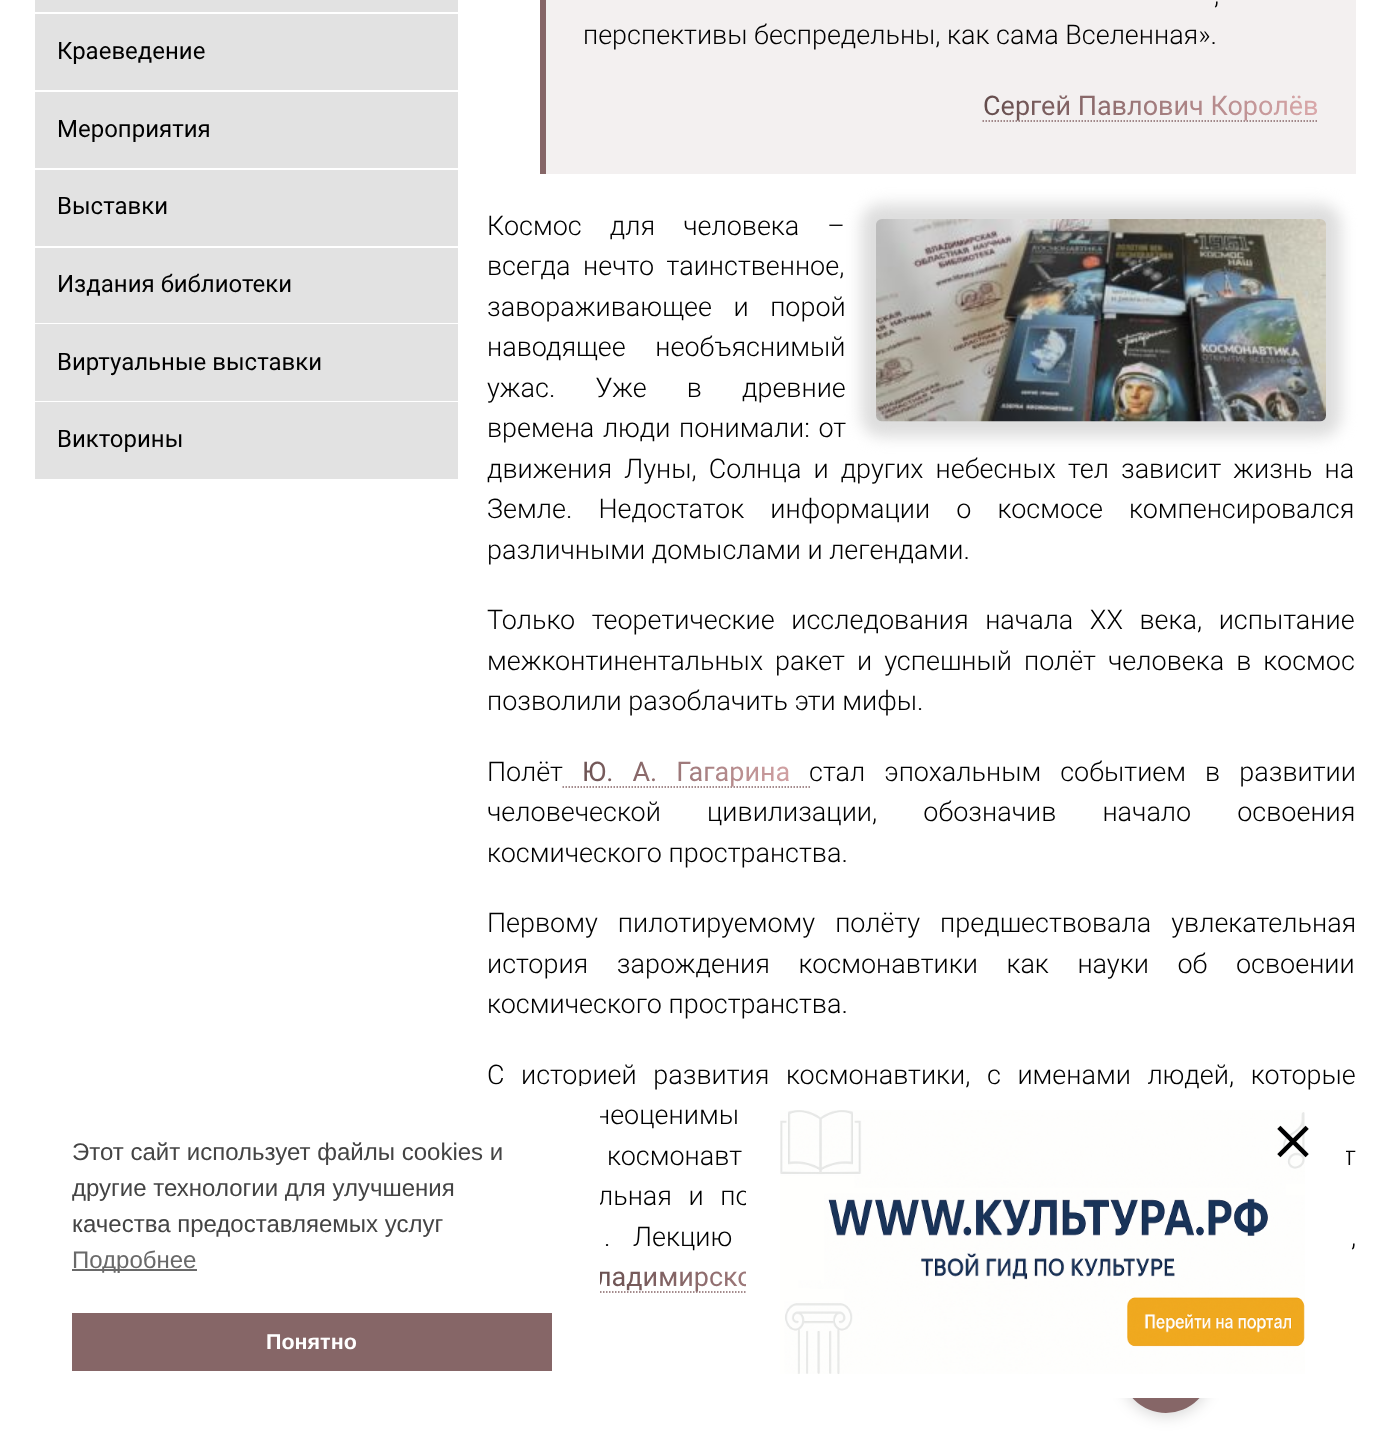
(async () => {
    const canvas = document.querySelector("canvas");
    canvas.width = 1390;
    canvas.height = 1442;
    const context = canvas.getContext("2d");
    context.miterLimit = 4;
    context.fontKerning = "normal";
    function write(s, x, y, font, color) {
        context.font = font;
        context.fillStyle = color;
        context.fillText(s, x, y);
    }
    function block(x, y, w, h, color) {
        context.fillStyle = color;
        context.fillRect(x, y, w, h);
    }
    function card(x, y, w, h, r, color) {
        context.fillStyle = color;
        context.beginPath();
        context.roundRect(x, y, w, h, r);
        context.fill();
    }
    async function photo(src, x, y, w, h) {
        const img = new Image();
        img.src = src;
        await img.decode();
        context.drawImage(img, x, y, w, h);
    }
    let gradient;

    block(0, 0, 1390, 1442, "rgb(255, 255, 255)");
    block(35, 0, 423, 12, "rgb(226, 226, 226)");
    block(35, 14, 423, 76, "rgb(226, 226, 226)");
    write("Краеведение", 57, 59, "24px Roboto", "rgb(0, 0, 0)");
    block(35, 92, 423, 76, "rgb(226, 226, 226)");
    write("Мероприятия", 57, 137, "24px Roboto", "rgb(0, 0, 0)");
    block(35, 170, 423, 76, "rgb(226, 226, 226)");
    write("Выставки", 57, 214, "24px Roboto", "rgb(0, 0, 0)");
    block(35, 248, 423, 75, "rgb(226, 226, 226)");
    write("Издания библиотеки", 57, 292, "24px Roboto", "rgb(0, 0, 0)");
    block(35, 324, 423, 77, "rgb(226, 226, 226)");
    write("Виртуальные выставки", 57, 370, "24px Roboto", "rgb(0, 0, 0)");
    block(35, 402, 423, 77, "rgb(226, 226, 226)");
    write("Викторины", 57, 447, "24px Roboto", "rgb(0, 0, 0)");
    block(546, 0, 810, 174, "rgb(243, 240, 240)");
    block(540, 0, 6, 174, "rgb(134, 102, 103)");
    context.wordSpacing = "21px";
    write(",", 1214, 4, "300 27px Roboto", "rgb(0, 0, 0)");
    context.wordSpacing = "0px";
    write("перспективы беспредельны, как сама Вселенная».", 583, 44, "300 27px Roboto", "rgb(0, 0, 0)");
    context.beginPath();
    context.moveTo(982.5, 121);
    context.lineTo(1318.5, 121);
    context.strokeStyle = "rgb(134, 102, 103)";
    context.lineWidth = 1.5;
    context.setLineDash([1.5, 1.5]);
    context.stroke();
    context.font = "27px Roboto";
    gradient = context.createLinearGradient(983, 106, 1318, 106);
    gradient.addColorStop(0, "rgb(99, 76, 76)");
    gradient.addColorStop(0.28, "rgb(134, 102, 103)");
    gradient.addColorStop(1, "rgb(218, 168, 170)");
    context.fillStyle = gradient;
    context.fillText("Сергей Павлович Королёв", 983, 115);
    context.wordSpacing = "21.5px";
    write("Космос для человека –", 487, 235, "300 27px Roboto", "rgb(0, 0, 0)");
    context.fillStyle = "rgb(221, 221, 221)";
    context.filter = "blur(7.5px)";
    context.beginPath();
    context.roundRect(861, 204, 480, 233, 21);
    context.fill();
    context.filter = "none";
    await photo("media/1.png", 876, 219, 450, 203);
    context.wordSpacing = "6px";
    write("всегда нечто таинственное,", 487, 275, "300 27px Roboto", "rgb(0, 0, 0)");
    context.wordSpacing = "15px";
    write("завораживающее и порой", 487, 316, "300 27px Roboto", "rgb(0, 0, 0)");
    context.wordSpacing = "23px";
    write("наводящее необъяснимый", 487, 356, "300 27px Roboto", "rgb(0, 0, 0)");
    context.wordSpacing = "33.5px";
    write("ужас. Уже в древние", 487, 397, "300 27px Roboto", "rgb(0, 0, 0)");
    context.wordSpacing = "2px";
    write("времена люди понимали: от", 487, 437, "300 27px Roboto", "rgb(0, 0, 0)");
    context.wordSpacing = "5.5px";
    write("движения Луны, Солнца и других небесных тел зависит жизнь на", 487, 478, "300 27px Roboto", "rgb(0, 0, 0)");
    context.wordSpacing = "19.5px";
    write("Земле. Недостаток информации о космосе компенсировался", 487, 518, "300 27px Roboto", "rgb(0, 0, 0)");
    context.wordSpacing = "0px";
    write("различными домыслами и легендами.", 487, 559, "300 27px Roboto", "rgb(0, 0, 0)");
    context.wordSpacing = "10px";
    write("Только теоретические исследования начала XX века, испытание", 487, 629, "300 27px Roboto", "rgb(0, 0, 0)");
    context.wordSpacing = "5.5px";
    write("межконтинентальных ракет и успешный полёт человека в космос", 487, 670, "300 27px Roboto", "rgb(0, 0, 0)");
    context.wordSpacing = "0px";
    write("позволили разоблачить эти мифы.", 487, 710, "300 27px Roboto", "rgb(0, 0, 0)");
    write("Полёт", 487, 781, "300 27px Roboto", "rgb(0, 0, 0)");
    context.beginPath();
    context.moveTo(562.5, 787);
    context.lineTo(810, 787);
    context.stroke();
    context.wordSpacing = "12.5px";
    context.font = "27px Roboto";
    gradient = context.createLinearGradient(563, 772, 809, 772);
    gradient.addColorStop(0, "rgb(99, 76, 76)");
    gradient.addColorStop(0.28, "rgb(134, 102, 103)");
    gradient.addColorStop(1, "rgb(218, 168, 170)");
    context.fillStyle = gradient;
    context.fillText("Ю. А. Гагарина", 582, 781);
    write("стал эпохальным событием в развитии", 809, 781, "300 27px Roboto", "rgb(0, 0, 0)");
    context.wordSpacing = "39.5px";
    write("человеческой цивилизации, обозначив начало освоения", 487, 821, "300 27px Roboto", "rgb(0, 0, 0)");
    context.wordSpacing = "0px";
    write("космического пространства.", 487, 862, "300 27px Roboto", "rgb(0, 0, 0)");
    context.wordSpacing = "13.5px";
    write("Первому пилотируемому полёту предшествовала увлекательная", 487, 932, "300 27px Roboto", "rgb(0, 0, 0)");
    context.wordSpacing = "22px";
    write("история зарождения космонавтики как науки об освоении", 487, 973, "300 27px Roboto", "rgb(0, 0, 0)");
    context.wordSpacing = "0px";
    write("космического пространства.", 487, 1013, "300 27px Roboto", "rgb(0, 0, 0)");
    write("С", 487, 1084, "300 27px Roboto", "rgb(0, 0, 0)");
    context.wordSpacing = "10px";
    write("историей развития космонавтики, с именами людей, которые", 521, 1084, "300 27px Roboto", "rgb(0, 0, 0)");
    context.wordSpacing = "12px";
    write("неоценимы", 595, 1124, "300 27px Roboto", "rgb(0, 0, 0)");
    context.wordSpacing = "12.5px";
    write("космонавт", 607, 1165, "300 27px Roboto", "rgb(0, 0, 0)");
    write("т", 1343, 1165, "300 27px Roboto", "rgb(0, 0, 0)");
    context.wordSpacing = "10px";
    write("льная и по", 598, 1205, "300 27px Roboto", "rgb(0, 0, 0)");
    context.wordSpacing = "0px";
    write(".", 604, 1246, "300 27px Roboto", "rgb(0, 0, 0)");
    context.wordSpacing = "16px";
    write("Лекцию", 633, 1246, "300 27px Roboto", "rgb(0, 0, 0)");
    write(",", 1351, 1246, "300 27px Roboto", "rgb(0, 0, 0)");
    context.beginPath();
    context.moveTo(579, 1292);
    context.lineTo(934.5, 1292);
    context.stroke();
    context.wordSpacing = "0px";
    context.font = "27px Roboto";
    gradient = context.createLinearGradient(579, 1277, 935, 1277);
    gradient.addColorStop(0, "rgb(99, 76, 76)");
    gradient.addColorStop(0.28, "rgb(134, 102, 103)");
    gradient.addColorStop(1, "rgb(218, 168, 170)");
    context.fillStyle = gradient;
    context.fillText("ладимирско", 596, 1286);
    block(579, 1086, 21, 207, "rgb(255, 255, 255)");
    write("Этот сайт использует файлы cookies и", 72, 1160, "24px Liberation Sans", "rgb(68, 68, 68)");
    write("другие технологии для улучшения", 72, 1196, "24px Liberation Sans", "rgb(68, 68, 68)");
    write("качества предоставляемых услуг", 72, 1232, "24px Liberation Sans", "rgb(68, 68, 68)");
    block(72, 1269, 125, 2, "rgb(105, 105, 105)");
    write("Подробнее", 72, 1268, "24px Liberation Sans", "rgb(105, 105, 105)");
    block(72, 1313, 480, 58, "rgb(134, 102, 103)");
    write("Понятно", 266, 1349, "bold 21.5px Liberation Sans", "rgb(255, 255, 255)");
    context.fillStyle = "rgba(0, 0, 0, 0.16)";
    context.filter = "blur(7.5px)";
    context.beginPath();
    context.roundRect(1121, 1326, 90, 90, 45);
    context.fill();
    context.filter = "none";
    context.fillStyle = "rgb(134, 102, 103)";
    context.beginPath();
    context.arc(1166, 1368, 45, 0, Math.PI * 2);
    context.fill();
    card(746, 1098, 600, 300, 6, "rgb(255, 255, 255)");
    await photo("media/2.png", 780, 1110, 525, 264);
    await photo("media/3.png", 1277, 1125, 32, 33);
})();
